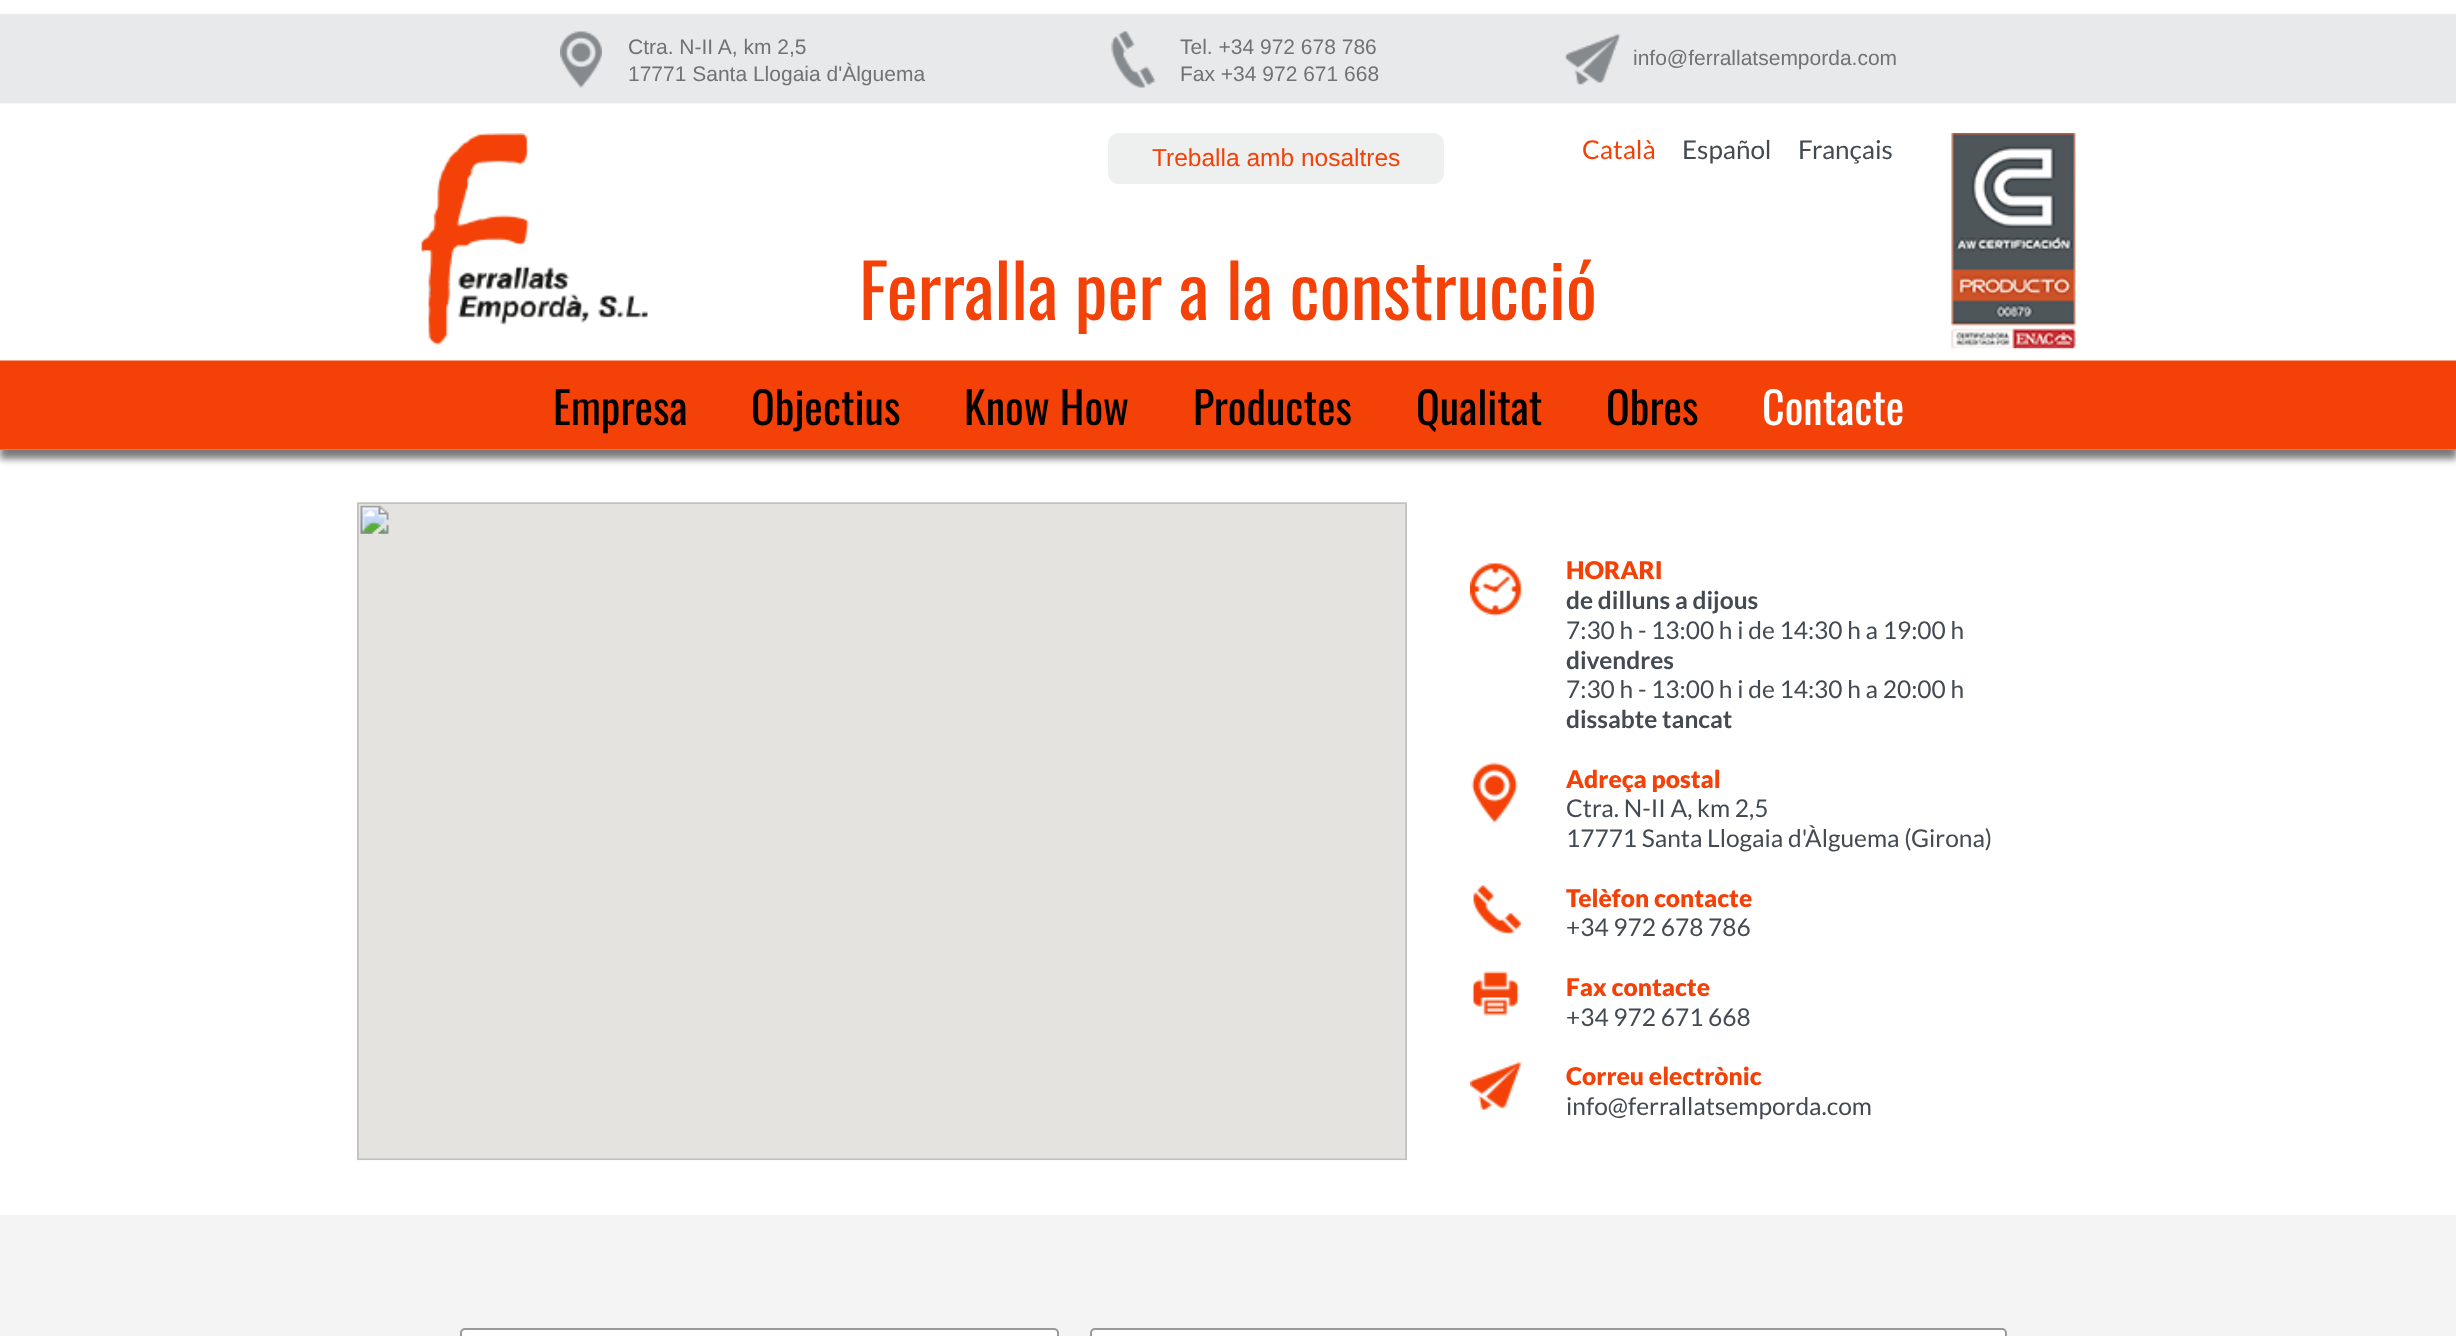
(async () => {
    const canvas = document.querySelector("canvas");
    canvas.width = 2456;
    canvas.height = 1336;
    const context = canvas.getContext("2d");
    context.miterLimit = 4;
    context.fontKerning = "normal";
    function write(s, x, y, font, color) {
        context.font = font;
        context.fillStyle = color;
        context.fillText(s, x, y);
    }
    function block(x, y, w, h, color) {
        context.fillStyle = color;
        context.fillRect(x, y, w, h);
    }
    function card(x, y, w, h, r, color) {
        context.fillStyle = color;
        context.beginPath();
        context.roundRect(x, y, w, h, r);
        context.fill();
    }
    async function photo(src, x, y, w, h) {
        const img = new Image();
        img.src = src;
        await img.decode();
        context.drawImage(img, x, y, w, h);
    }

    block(0, 0, 2456, 1336, "rgb(255, 255, 255)");
    context.save();
    context.beginPath();
    context.moveTo(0, 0);
    context.lineTo(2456, 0);
    context.lineTo(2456, 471);
    context.lineTo(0, 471);
    context.closePath();
    context.moveTo(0, 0);
    context.lineTo(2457, 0);
    context.lineTo(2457, 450);
    context.lineTo(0, 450);
    context.closePath();
    context.clip("evenodd");
    context.fillStyle = "rgba(51, 51, 51, 0.65)";
    context.filter = "blur(3.5px)";
    context.beginPath();
    context.rect(0, 9, 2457, 450);
    context.fill();
    context.filter = "none";
    context.restore();
    await photo("media/1.png", 0, 13, 2456, 437);
    await photo("media/2.png", 560, 31, 42, 57);
    write("Ctra. N-II A, km 2,5", 628, 54, "21px Liberation Sans", "rgb(113, 114, 116)");
    write("17771 Santa Llogaia d'Àlguema", 628, 81, "21px Liberation Sans", "rgb(113, 114, 116)");
    await photo("media/3.png", 1111, 31, 44, 57);
    write("Tel. +34 972 678 786", 1180, 54, "21px Liberation Sans", "rgb(113, 114, 116)");
    write("Fax +34 972 671 668", 1180, 81, "21px Liberation Sans", "rgb(113, 114, 116)");
    await photo("media/4.png", 1564, 33, 57, 52);
    write("info@ferrallatsemporda.com", 1633, 65, "21px Liberation Sans", "rgb(113, 114, 116)");
    await photo("media/5.png", 420, 133, 228, 212);
    card(1108, 133, 336, 51, 11, "rgb(238, 239, 239)");
    write("Treballa amb nosaltres", 1152, 166, "24.5px Liberation Sans", "rgb(243, 65, 7)");
    write("Català", 1582, 159, "26px Lato", "rgb(243, 65, 7)");
    write("Español", 1682, 159, "26px Lato", "rgb(67, 74, 82)");
    write("Français", 1798, 159, "26px Lato", "rgb(67, 74, 82)");
    await photo("media/6.png", 1950, 133, 126, 216);
    write("Ferralla per a la construcció", 859, 320, "73.5px Oswald", "rgb(243, 65, 7)");
    write("Empresa", 553, 425, "44px Oswald", "rgb(0, 0, 0)");
    write("Objectius", 751, 425, "44px Oswald", "rgb(0, 0, 0)");
    write("Know How", 964, 425, "44px Oswald", "rgb(0, 0, 0)");
    write("Productes", 1193, 425, "44px Oswald", "rgb(0, 0, 0)");
    write("Qualitat", 1416, 425, "44px Oswald", "rgb(0, 0, 0)");
    write("Obres", 1606, 425, "44px Oswald", "rgb(0, 0, 0)");
    write("Contacte", 1762, 425, "44px Oswald", "rgb(255, 255, 255)");
    await photo("media/7.png", 357, 502, 1050, 659);
    await photo("media/8.png", 1470, 563, 53, 547);
    write("HORARI", 1566, 579, "900 24.5px Lato", "rgb(243, 65, 7)");
    write("de dilluns a dijous", 1566, 609, "bold 24.5px Lato", "rgb(67, 74, 82)");
    write("7:30 h - 13:00 h i de 14:30 h a 19:00 h", 1566, 639, "24.5px Lato", "rgb(67, 74, 82)");
    write("divendres", 1566, 669, "bold 24.5px Lato", "rgb(67, 74, 82)");
    write("7:30 h - 13:00 h i de 14:30 h a 20:00 h", 1566, 698, "24.5px Lato", "rgb(67, 74, 82)");
    write("dissabte tancat", 1566, 728, "bold 24.5px Lato", "rgb(67, 74, 82)");
    write("Adreça postal", 1566, 788, "900 24.5px Lato", "rgb(243, 65, 7)");
    write("Ctra. N-II A, km 2,5", 1566, 817, "24.5px Lato", "rgb(67, 74, 82)");
    write("17771 Santa Llogaia d'Àlguema (Girona)", 1566, 847, "24.5px Lato", "rgb(67, 74, 82)");
    write("Telèfon contacte", 1566, 907, "900 24.5px Lato", "rgb(243, 65, 7)");
    write("+34 972 678 786", 1566, 936, "24.5px Lato", "rgb(67, 74, 82)");
    write("Fax contacte", 1566, 996, "900 24.5px Lato", "rgb(243, 65, 7)");
    write("+34 972 671 668", 1566, 1026, "24.5px Lato", "rgb(67, 74, 82)");
    write("Correu electrònic", 1566, 1085, "900 24.5px Lato", "rgb(243, 65, 7)");
    write("info@ferrallatsemporda.com", 1566, 1115, "24.5px Lato", "rgb(67, 74, 82)");
    block(0, 1215, 2456, 121, "rgb(244, 244, 244)");
    context.fillStyle = "rgb(255, 255, 255)";
    context.beginPath();
    context.roundRect(461, 1329, 597, 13, 4);
    context.fill();
    context.strokeStyle = "rgb(153, 153, 153)";
    context.lineWidth = 2;
    context.stroke();
    context.beginPath();
    context.roundRect(1091, 1329, 915, 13, 4);
    context.fill();
    context.stroke();
})();
